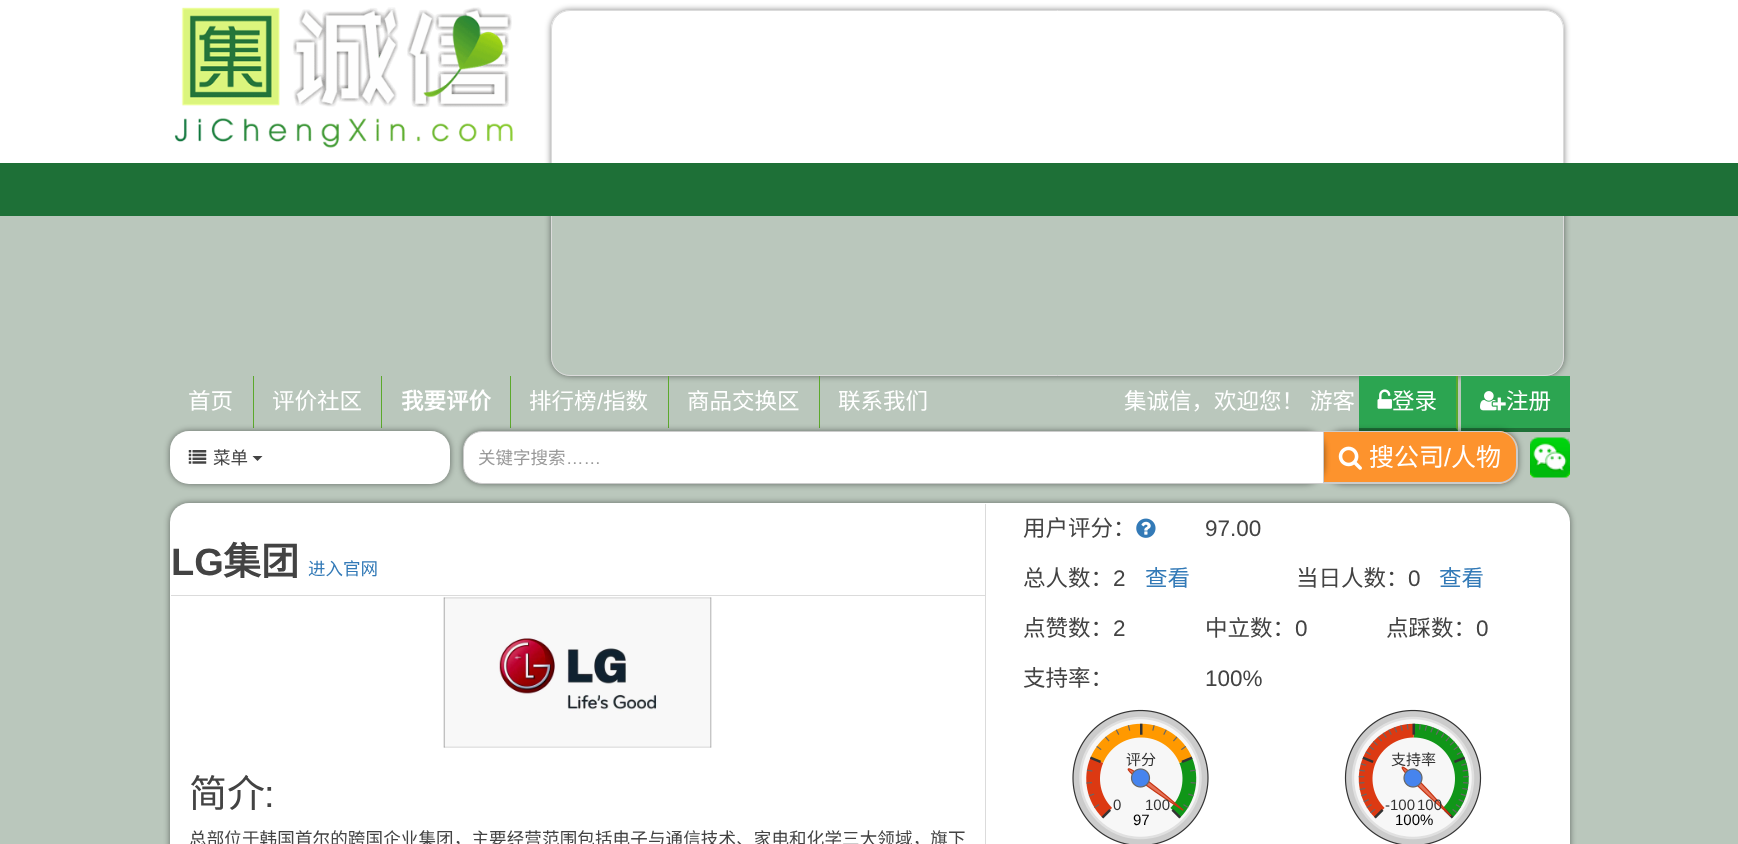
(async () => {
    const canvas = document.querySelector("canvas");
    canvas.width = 1738;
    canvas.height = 844;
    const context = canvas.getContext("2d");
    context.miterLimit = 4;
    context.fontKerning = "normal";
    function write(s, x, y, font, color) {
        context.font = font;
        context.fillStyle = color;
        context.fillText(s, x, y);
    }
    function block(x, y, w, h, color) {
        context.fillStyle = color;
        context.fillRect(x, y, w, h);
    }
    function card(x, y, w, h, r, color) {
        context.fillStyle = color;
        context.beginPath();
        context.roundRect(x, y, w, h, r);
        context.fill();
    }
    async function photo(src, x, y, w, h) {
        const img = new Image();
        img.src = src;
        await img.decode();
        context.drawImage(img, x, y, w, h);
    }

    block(0, 0, 1738, 844, "rgb(186, 199, 188)");
    block(0, 0, 1738, 163, "rgb(255, 255, 255)");
    await photo("media/1.png", 174, 7, 339, 141);
    context.save();
    context.beginPath();
    context.moveTo(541, 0);
    context.lineTo(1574, 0);
    context.lineTo(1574, 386);
    context.lineTo(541, 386);
    context.closePath();
    context.moveTo(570, 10);
    context.lineTo(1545, 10);
    context.bezierCurveTo(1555.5, 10, 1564, 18.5, 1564, 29);
    context.lineTo(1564, 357);
    context.bezierCurveTo(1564, 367.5, 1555.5, 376, 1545, 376);
    context.lineTo(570, 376);
    context.bezierCurveTo(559.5, 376, 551, 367.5, 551, 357);
    context.lineTo(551, 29);
    context.bezierCurveTo(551, 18.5, 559.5, 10, 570, 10);
    context.closePath();
    context.clip("evenodd");
    context.fillStyle = "rgba(0, 0, 0, 0.48)";
    context.filter = "blur(3px)";
    context.beginPath();
    context.roundRect(551, 10, 1013, 366, 19);
    context.fill();
    context.filter = "none";
    context.restore();
    context.beginPath();
    context.roundRect(551.5, 10.5, 1012, 365, 18.5);
    context.strokeStyle = "rgb(219, 219, 219)";
    context.stroke();
    block(0, 163, 1738, 53, "rgb(30, 112, 55)");
    block(253, 376, 1, 52, "rgb(92, 169, 44)");
    write("首页", 188, 409, "22.5px Noto Sans CJK SC", "rgb(255, 255, 255)");
    block(381, 376, 1, 52, "rgb(92, 169, 44)");
    write("评价社区", 272, 409, "22.5px Noto Sans CJK SC", "rgb(255, 255, 255)");
    block(510, 376, 1, 52, "rgb(92, 169, 44)");
    write("我要评价", 401, 409, "bold 22.5px Noto Sans CJK SC", "rgb(255, 255, 255)");
    block(668, 376, 1, 52, "rgb(92, 169, 44)");
    write("排行榜", 529, 409, "22.5px Noto Sans CJK SC", "rgb(255, 255, 255)");
    write("/", 597, 409, "22.5px Liberation Sans", "rgb(255, 255, 255)");
    write("指数", 603, 409, "22.5px Noto Sans CJK SC", "rgb(255, 255, 255)");
    block(819, 376, 1, 52, "rgb(92, 169, 44)");
    write("商品交换区", 687, 409, "22.5px Noto Sans CJK SC", "rgb(255, 255, 255)");
    write("联系我们", 838, 409, "22.5px Noto Sans CJK SC", "rgb(255, 255, 255)");
    context.wordSpacing = "1px";
    write("集诚信，欢迎您！ 游客", 1124, 409, "22.5px Noto Sans CJK SC", "rgb(255, 255, 255)");
    block(1359, 376, 99, 55, "rgb(44, 165, 81)");
    context.fillStyle = "rgb(92, 169, 44)";
    context.beginPath();
    context.moveTo(1458, 376);
    context.lineTo(1458, 431);
    context.lineTo(1456, 428);
    context.lineTo(1456, 376);
    context.closePath();
    context.fill();
    context.fillStyle = "rgb(30, 112, 55)";
    context.beginPath();
    context.moveTo(1458, 431);
    context.lineTo(1359, 431);
    context.lineTo(1359, 428);
    context.lineTo(1456, 428);
    context.closePath();
    context.fill();
    await photo("media/2.png", 1377, 389, 15, 20);
    context.wordSpacing = "0px";
    write("登录", 1392, 409, "22.5px Noto Sans CJK SC", "rgb(255, 255, 255)");
    block(1461, 376, 109, 52, "rgb(44, 165, 81)");
    block(1461, 428, 109, 4, "rgb(30, 112, 55)");
    await photo("media/3.png", 1480, 391, 26, 20);
    write("注册", 1506, 409, "22.5px Noto Sans CJK SC", "rgb(255, 255, 255)");
    context.fillStyle = "rgba(0, 0, 0, 0.48)";
    context.filter = "blur(3px)";
    context.beginPath();
    context.roundRect(170, 431, 280, 53, 19);
    context.fill();
    context.filter = "none";
    card(170, 431, 280, 53, 19, "rgb(255, 255, 255)");
    await photo("media/4.png", 188, 450, 19, 14);
    write("菜单", 213, 464, "17.5px Noto Sans CJK SC", "rgb(67, 67, 67)");
    context.beginPath();
    context.moveTo(252.5, 456);
    context.lineTo(262.5, 456);
    context.lineTo(257.5, 461);
    context.closePath();
    context.fill();
    context.fillStyle = "rgba(0, 0, 0, 0.48)";
    context.filter = "blur(3px)";
    context.beginPath();
    context.roundRect(1324, 431, 194, 53, 19);
    context.fill();
    context.filter = "none";
    context.fillStyle = "rgb(253, 147, 45)";
    context.beginPath();
    context.roundRect(1324, 431, 194, 53, [0, 19, 19, 0]);
    context.fill();
    context.fillStyle = "rgb(204, 204, 204)";
    context.beginPath();
    context.moveTo(1324, 431);
    context.lineTo(1499, 431);
    context.bezierCurveTo(1509, 431, 1518, 440, 1518, 450);
    context.lineTo(1518, 465);
    context.bezierCurveTo(1518, 475, 1509, 484, 1499, 484);
    context.lineTo(1324, 484);
    context.closePath();
    context.moveTo(1324, 432);
    context.lineTo(1499, 432);
    context.bezierCurveTo(1508, 432, 1516, 440, 1516, 450);
    context.lineTo(1516, 465);
    context.bezierCurveTo(1516, 475, 1508, 482, 1499, 482);
    context.lineTo(1324, 482);
    context.closePath();
    context.fill("evenodd");
    context.fillStyle = "rgba(0, 0, 0, 0.48)";
    context.filter = "blur(3px)";
    context.beginPath();
    context.roundRect(463, 431, 861, 53, 19);
    context.fill();
    context.filter = "none";
    context.fillStyle = "rgb(255, 255, 255)";
    context.beginPath();
    context.roundRect(463.5, 431.5, 860, 52, [18.5, 0, 0, 18.5]);
    context.fill();
    context.strokeStyle = "rgb(204, 204, 204)";
    context.stroke();
    write("关键字搜索", 478, 464, "17.5px Noto Sans CJK SC", "rgb(153, 153, 153)");
    write("……", 566, 464, "17.5px Liberation Sans", "rgb(153, 153, 153)");
    await photo("media/5.png", 1338, 446, 24, 24);
    write("搜公司", 1369, 466, "25px Noto Sans CJK SC", "rgb(255, 255, 255)");
    write("/", 1444, 466, "25px Liberation Sans", "rgb(255, 255, 255)");
    write("人物", 1451, 466, "25px Noto Sans CJK SC", "rgb(255, 255, 255)");
    await photo("media/6.png", 1530, 437, 40, 41);
    context.fillStyle = "rgba(0, 0, 0, 0.48)";
    context.filter = "blur(3px)";
    context.beginPath();
    context.roundRect(170, 503, 1400, 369, 19);
    context.fill();
    context.filter = "none";
    card(170, 503, 1400, 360, 19, "rgb(255, 255, 255)");
    block(985, 504, 1, 340, "rgb(219, 219, 219)");
    block(171, 595, 814, 1, "rgb(219, 219, 219)");
    write("LG", 171, 575, "bold 38px Liberation Sans", "rgb(67, 67, 67)");
    write("集团", 223, 575, "bold 38px Noto Sans CJK SC", "rgb(67, 67, 67)");
    write("进入官网", 308, 575, "17.5px Noto Sans CJK SC", "rgb(51, 122, 183)");
    await photo("media/7.png", 443, 597, 269, 151);
    write("简介", 189, 807, "38px Noto Sans CJK SC", "rgb(67, 67, 67)");
    write(":", 264, 807, "38px Liberation Sans", "rgb(67, 67, 67)");
    context.letterSpacing = "0.15px";
    write("总部位于韩国首尔的跨国企业集团，主要经营范围包括电子与通信技术、家电和化学三大领域，旗下", 189, 845, "17.5px Noto Sans CJK SC", "rgb(67, 67, 67)");
    context.letterSpacing = "0px";
    write("用户评分：", 1023, 536, "22.5px Noto Sans CJK SC", "rgb(67, 67, 67)");
    await photo("media/8.png", 1136, 518, 20, 20);
    write("97.00", 1205, 536, "22.5px Liberation Sans", "rgb(67, 67, 67)");
    write("总人数：", 1023, 586, "22.5px Noto Sans CJK SC", "rgb(67, 67, 67)");
    write("2", 1113, 586, "22.5px Liberation Sans", "rgb(67, 67, 67)");
    write("查看", 1145, 586, "22.5px Noto Sans CJK SC", "rgb(51, 122, 183)");
    write("当日人数：", 1296, 586, "22.5px Noto Sans CJK SC", "rgb(67, 67, 67)");
    write("0", 1408, 586, "22.5px Liberation Sans", "rgb(67, 67, 67)");
    write("查看", 1439, 586, "22.5px Noto Sans CJK SC", "rgb(51, 122, 183)");
    write("点赞数：", 1023, 636, "22.5px Noto Sans CJK SC", "rgb(67, 67, 67)");
    write("2", 1113, 636, "22.5px Liberation Sans", "rgb(67, 67, 67)");
    write("中立数：", 1205, 636, "22.5px Noto Sans CJK SC", "rgb(67, 67, 67)");
    write("0", 1295, 636, "22.5px Liberation Sans", "rgb(67, 67, 67)");
    write("点踩数：", 1386, 636, "22.5px Noto Sans CJK SC", "rgb(67, 67, 67)");
    write("0", 1476, 636, "22.5px Liberation Sans", "rgb(67, 67, 67)");
    write("支持率：", 1023, 686, "22.5px Noto Sans CJK SC", "rgb(67, 67, 67)");
    write("100%", 1205, 686, "22.5px Liberation Sans", "rgb(67, 67, 67)");
    await photo("media/9.png", 1072, 709, 137, 135);
    write("评分", 1126, 765, "15px Noto Sans CJK SC", "rgb(51, 51, 51)");
    write("0", 1113, 810, "15px Liberation Sans", "rgb(51, 51, 51)");
    write("100", 1145, 810, "15px Liberation Sans", "rgb(51, 51, 51)");
    write("97", 1133, 825, "15px Liberation Sans", "rgb(0, 0, 0)");
    await photo("media/10.png", 1344, 709, 138, 135);
    write("支持率", 1391, 765, "15px Noto Sans CJK SC", "rgb(51, 51, 51)");
    write("-100", 1385, 810, "15px Liberation Sans", "rgb(51, 51, 51)");
    write("100", 1417, 810, "15px Liberation Sans", "rgb(51, 51, 51)");
    write("100%", 1395, 825, "15px Liberation Sans", "rgb(0, 0, 0)");
})();
